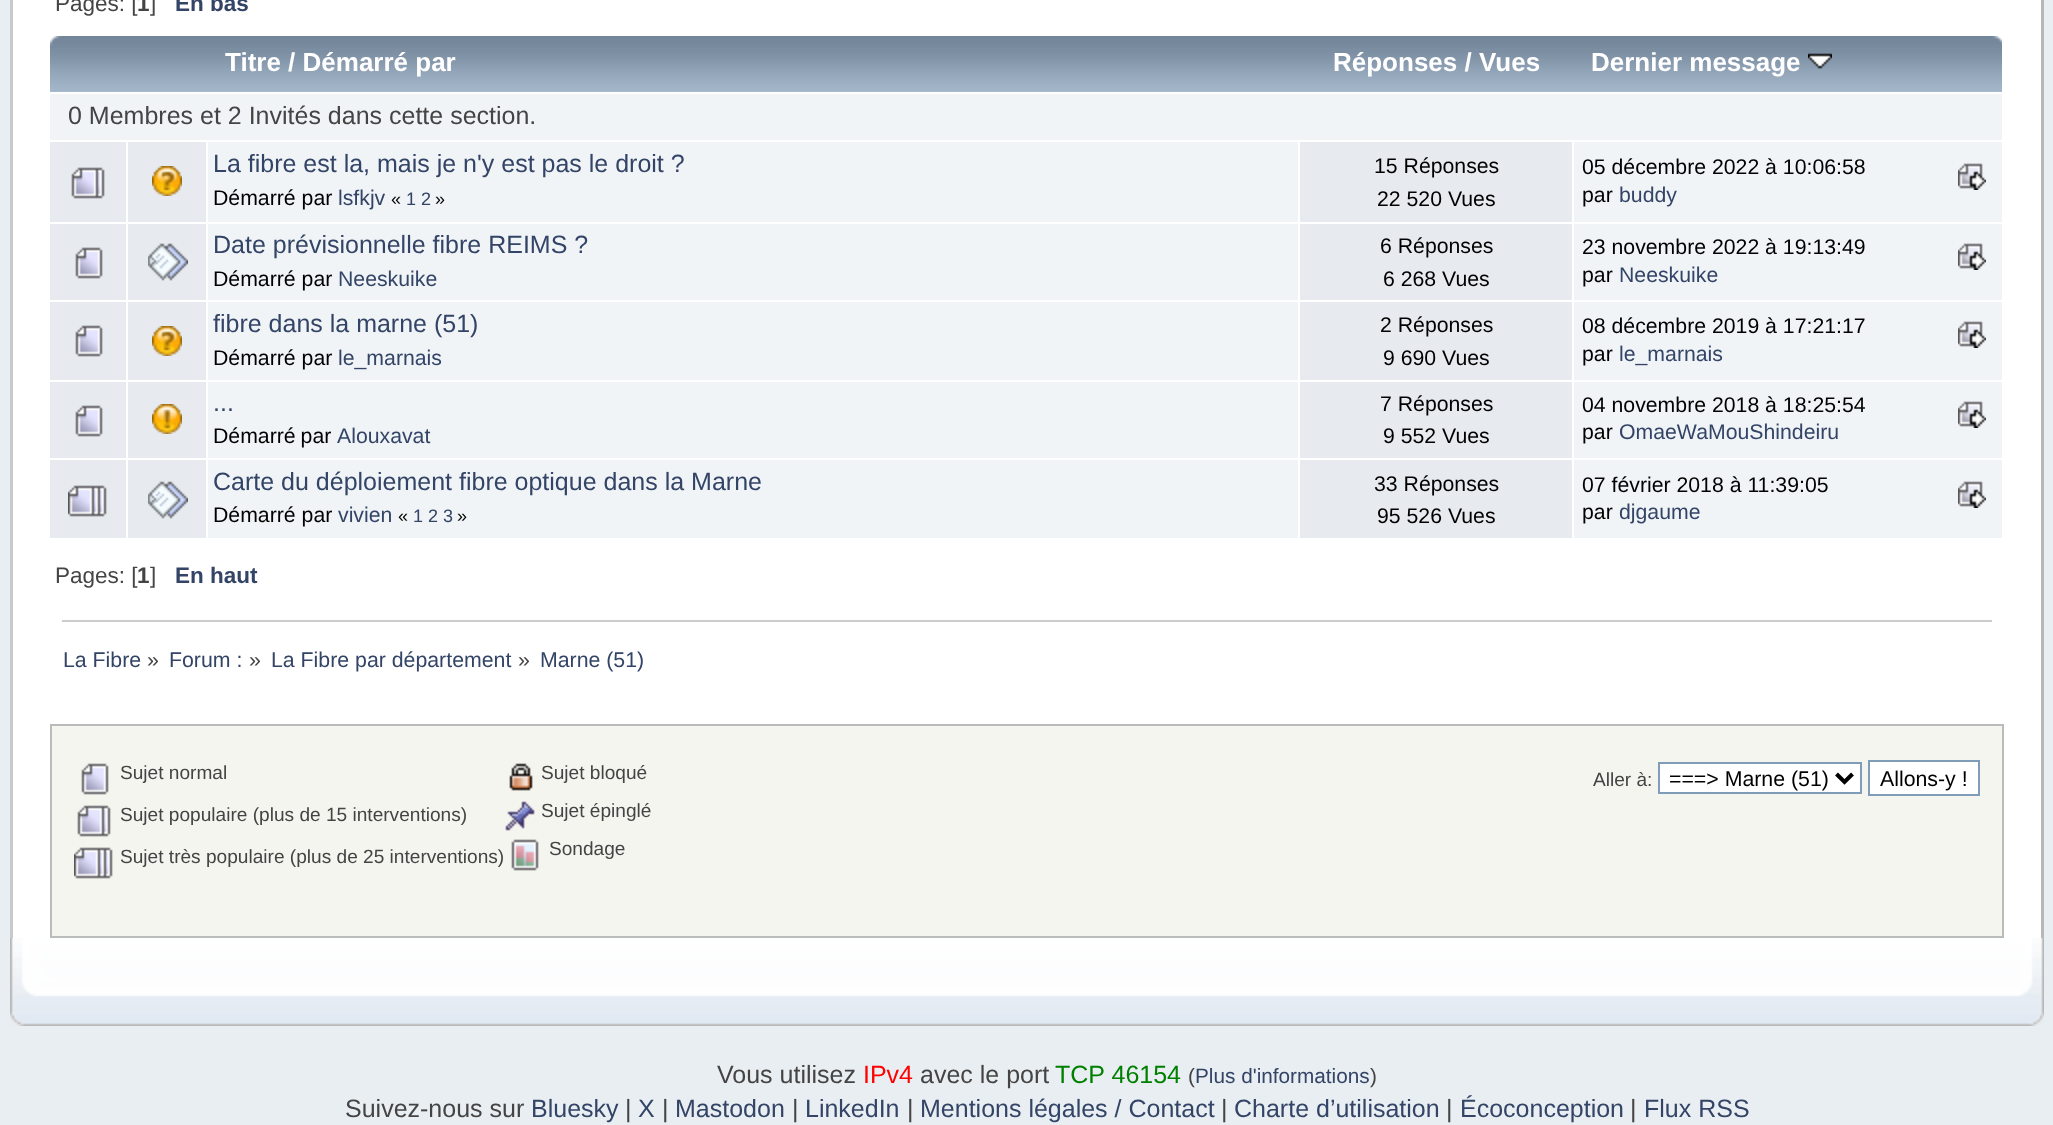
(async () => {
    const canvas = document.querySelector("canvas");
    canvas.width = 2053;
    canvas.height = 1125;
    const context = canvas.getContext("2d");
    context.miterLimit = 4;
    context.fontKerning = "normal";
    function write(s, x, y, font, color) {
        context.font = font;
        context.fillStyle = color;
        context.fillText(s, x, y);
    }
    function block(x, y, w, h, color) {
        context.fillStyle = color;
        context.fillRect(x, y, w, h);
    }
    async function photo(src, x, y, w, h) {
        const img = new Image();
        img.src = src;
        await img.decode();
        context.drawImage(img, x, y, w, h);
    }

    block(0, 0, 2053, 1125, "rgb(233, 238, 242)");
    block(13, 0, 2028, 938, "rgb(255, 255, 255)");
    block(10, 0, 3, 938, "rgb(201, 201, 201)");
    block(2041, 0, 3, 938, "rgb(183, 183, 183)");
    write("Pages: [", 55, 11, "22.5px Liberation Sans", "rgb(68, 68, 68)");
    write("1", 137, 11, "bold 22.5px Liberation Sans", "rgb(68, 68, 68)");
    write("]", 150, 11, "22.5px Liberation Sans", "rgb(68, 68, 68)");
    write("En bas", 175, 11, "bold 22.5px Liberation Sans", "rgb(51, 68, 102)");
    block(50, 91, 1952, 1, "rgb(167, 185, 205)");
    await photo("media/1.png", 50, 36, 156, 55);
    await photo("media/2.png", 206, 36, 1094, 55);
    write("Titre / Démarré par", 225, 71, "bold 26px Liberation Sans", "rgb(255, 255, 255)");
    await photo("media/3.png", 1300, 36, 274, 55);
    write("Réponses / Vues", 1333, 71, "bold 26px Liberation Sans", "rgb(255, 255, 255)");
    await photo("media/4.png", 1574, 36, 428, 55);
    write("Dernier message", 1591, 71, "bold 26px Liberation Sans", "rgb(255, 255, 255)");
    await photo("media/5.png", 1808, 53, 24, 16);
    block(50, 94, 1952, 46, "rgb(240, 244, 247)");
    write("0 Membres et 2 Invités dans cette section.", 68, 124, "25px Liberation Sans", "rgb(68, 68, 68)");
    block(50, 142, 76, 80, "rgb(231, 234, 239)");
    await photo("media/6.png", 71, 167, 34, 32);
    block(128, 142, 78, 80, "rgb(231, 234, 239)");
    await photo("media/7.png", 152, 166, 30, 30);
    block(208, 142, 1090, 80, "rgb(240, 244, 247)");
    write("La fibre est la, mais je n'y est pas le droit ?", 213, 172, "25px Liberation Sans", "rgb(51, 68, 102)");
    write("Démarré par", 213, 205, "21.25px Liberation Sans", "rgb(0, 0, 0)");
    write("lsfkjv", 338, 205, "21.25px Liberation Sans", "rgb(51, 68, 102)");
    write("«", 391, 205, "18px Liberation Sans", "rgb(0, 0, 0)");
    write("1 2", 406, 205, "18px Liberation Sans", "rgb(51, 68, 102)");
    write("»", 435, 205, "18px Liberation Sans", "rgb(0, 0, 0)");
    block(1300, 142, 272, 80, "rgb(231, 234, 239)");
    write("15 Réponses", 1374, 173, "21.25px Liberation Sans", "rgb(0, 0, 0)");
    write("22 520 Vues", 1377, 206, "21.25px Liberation Sans", "rgb(0, 0, 0)");
    block(1574, 142, 428, 80, "rgb(240, 244, 247)");
    write("05 décembre 2022 à 10:06:58", 1582, 174, "21.25px Liberation Sans", "rgb(0, 0, 0)");
    await photo("media/8.png", 1958, 163, 28, 27);
    write("par", 1582, 202, "21.25px Liberation Sans", "rgb(0, 0, 0)");
    write("buddy", 1619, 202, "21.25px Liberation Sans", "rgb(51, 68, 102)");
    block(50, 224, 76, 76, "rgb(231, 234, 239)");
    await photo("media/9.png", 75, 247, 28, 32);
    block(128, 224, 78, 76, "rgb(231, 234, 239)");
    await photo("media/10.png", 148, 243, 40, 38);
    block(208, 224, 1090, 76, "rgb(240, 244, 247)");
    write("Date prévisionnelle fibre REIMS ?", 213, 253, "25px Liberation Sans", "rgb(51, 68, 102)");
    write("Démarré par", 213, 286, "21.25px Liberation Sans", "rgb(0, 0, 0)");
    write("Neeskuike", 338, 286, "21.25px Liberation Sans", "rgb(51, 68, 102)");
    block(1300, 224, 272, 76, "rgb(231, 234, 239)");
    write("6 Réponses", 1380, 253, "21.25px Liberation Sans", "rgb(0, 0, 0)");
    write("6 268 Vues", 1383, 286, "21.25px Liberation Sans", "rgb(0, 0, 0)");
    block(1574, 224, 428, 76, "rgb(240, 244, 247)");
    write("23 novembre 2022 à 19:13:49", 1582, 254, "21.25px Liberation Sans", "rgb(0, 0, 0)");
    await photo("media/8.png", 1958, 243, 28, 27);
    write("par", 1582, 282, "21.25px Liberation Sans", "rgb(0, 0, 0)");
    write("Neeskuike", 1619, 282, "21.25px Liberation Sans", "rgb(51, 68, 102)");
    block(50, 302, 76, 78, "rgb(231, 234, 239)");
    await photo("media/9.png", 75, 325, 28, 32);
    block(128, 302, 78, 78, "rgb(231, 234, 239)");
    await photo("media/7.png", 152, 326, 30, 30);
    block(208, 302, 1090, 78, "rgb(240, 244, 247)");
    write("fibre dans la marne (51)", 213, 332, "25px Liberation Sans", "rgb(51, 68, 102)");
    write("Démarré par", 213, 365, "21.25px Liberation Sans", "rgb(0, 0, 0)");
    write("le_marnais", 338, 365, "21.25px Liberation Sans", "rgb(51, 68, 102)");
    block(1300, 302, 272, 78, "rgb(231, 234, 239)");
    write("2 Réponses", 1380, 332, "21.25px Liberation Sans", "rgb(0, 0, 0)");
    write("9 690 Vues", 1383, 365, "21.25px Liberation Sans", "rgb(0, 0, 0)");
    block(1574, 302, 428, 78, "rgb(240, 244, 247)");
    write("08 décembre 2019 à 17:21:17", 1582, 333, "21.25px Liberation Sans", "rgb(0, 0, 0)");
    await photo("media/8.png", 1958, 321, 28, 27);
    write("par", 1582, 361, "21.25px Liberation Sans", "rgb(0, 0, 0)");
    write("le_marnais", 1619, 361, "21.25px Liberation Sans", "rgb(51, 68, 102)");
    block(50, 382, 76, 76, "rgb(231, 234, 239)");
    await photo("media/9.png", 75, 405, 28, 32);
    block(128, 382, 78, 76, "rgb(231, 234, 239)");
    await photo("media/11.png", 152, 404, 30, 30);
    block(208, 382, 1090, 76, "rgb(240, 244, 247)");
    write("...", 213, 411, "25px Liberation Sans", "rgb(51, 68, 102)");
    context.wordSpacing = "-1px";
    write("Démarré par", 213, 443, "21.25px Liberation Sans", "rgb(0, 0, 0)");
    context.wordSpacing = "0px";
    write("Alouxavat", 337, 443, "21.25px Liberation Sans", "rgb(51, 68, 102)");
    block(1300, 382, 272, 76, "rgb(231, 234, 239)");
    write("7 Réponses", 1380, 411, "21.25px Liberation Sans", "rgb(0, 0, 0)");
    write("9 552 Vues", 1383, 443, "21.25px Liberation Sans", "rgb(0, 0, 0)");
    block(1574, 382, 428, 76, "rgb(240, 244, 247)");
    write("04 novembre 2018 à 18:25:54", 1582, 412, "21.25px Liberation Sans", "rgb(0, 0, 0)");
    await photo("media/8.png", 1958, 401, 28, 27);
    write("par", 1582, 439, "21.25px Liberation Sans", "rgb(0, 0, 0)");
    write("OmaeWaMouShindeiru", 1619, 439, "21.25px Liberation Sans", "rgb(51, 68, 102)");
    block(50, 460, 76, 78, "rgb(231, 234, 239)");
    await photo("media/12.png", 68, 485, 39, 32);
    block(128, 460, 78, 78, "rgb(231, 234, 239)");
    await photo("media/10.png", 148, 481, 40, 38);
    block(208, 460, 1090, 78, "rgb(240, 244, 247)");
    write("Carte du déploiement fibre optique dans la Marne", 213, 490, "25px Liberation Sans", "rgb(51, 68, 102)");
    write("Démarré par", 213, 522, "21.25px Liberation Sans", "rgb(0, 0, 0)");
    write("vivien", 338, 522, "21.25px Liberation Sans", "rgb(51, 68, 102)");
    write("«", 398, 522, "18px Liberation Sans", "rgb(0, 0, 0)");
    write("1 2 3", 413, 522, "18px Liberation Sans", "rgb(51, 68, 102)");
    write("»", 457, 522, "18px Liberation Sans", "rgb(0, 0, 0)");
    block(1300, 460, 272, 78, "rgb(231, 234, 239)");
    write("33 Réponses", 1374, 491, "21.25px Liberation Sans", "rgb(0, 0, 0)");
    write("95 526 Vues", 1377, 523, "21.25px Liberation Sans", "rgb(0, 0, 0)");
    block(1574, 460, 428, 78, "rgb(240, 244, 247)");
    write("07 février 2018 à 11:39:05", 1582, 492, "21.25px Liberation Sans", "rgb(0, 0, 0)");
    await photo("media/8.png", 1958, 481, 28, 27);
    write("par", 1582, 519, "21.25px Liberation Sans", "rgb(0, 0, 0)");
    write("djgaume", 1619, 519, "21.25px Liberation Sans", "rgb(51, 68, 102)");
    write("Pages: [", 55, 583, "22.5px Liberation Sans", "rgb(68, 68, 68)");
    write("1", 137, 583, "bold 22.5px Liberation Sans", "rgb(68, 68, 68)");
    write("]", 150, 583, "22.5px Liberation Sans", "rgb(68, 68, 68)");
    write("En haut", 175, 583, "bold 22.5px Liberation Sans", "rgb(51, 68, 102)");
    block(62, 620, 1930, 2, "rgb(204, 204, 204)");
    write("La Fibre", 63, 667, "21.3px Liberation Sans", "rgb(51, 68, 102)");
    write("»", 147, 667, "21.3px Liberation Sans", "rgb(68, 68, 68)");
    write("Forum :", 169, 667, "21.3px Liberation Sans", "rgb(51, 68, 102)");
    write("»", 249, 667, "21.3px Liberation Sans", "rgb(68, 68, 68)");
    write("La Fibre par département", 271, 667, "21.3px Liberation Sans", "rgb(51, 68, 102)");
    write("»", 518, 667, "21.3px Liberation Sans", "rgb(68, 68, 68)");
    write("Marne (51)", 540, 667, "21.3px Liberation Sans", "rgb(51, 68, 102)");
    context.fillStyle = "rgb(245, 245, 240)";
    context.beginPath();
    context.rect(51, 725, 1952, 212);
    context.fill();
    context.strokeStyle = "rgb(187, 187, 187)";
    context.lineWidth = 2;
    context.stroke();
    await photo("media/13.png", 81, 763, 28, 32);
    write("Sujet normal", 120, 779, "19.1px Liberation Sans", "rgb(68, 68, 68)");
    await photo("media/14.png", 77, 805, 34, 32);
    write("Sujet populaire (plus de 15 interventions)", 120, 821, "19.1px Liberation Sans", "rgb(68, 68, 68)");
    await photo("media/15.png", 74, 847, 39, 32);
    write("Sujet très populaire (plus de 25 interventions)", 120, 863, "19.1px Liberation Sans", "rgb(68, 68, 68)");
    await photo("media/16.png", 509, 763, 24, 28);
    write("Sujet bloqué", 541, 779, "19.1px Liberation Sans", "rgb(68, 68, 68)");
    await photo("media/17.png", 505, 801, 30, 30);
    write("Sujet épinglé", 541, 817, "19.1px Liberation Sans", "rgb(68, 68, 68)");
    await photo("media/18.png", 511, 839, 28, 32);
    write("Sondage", 549, 855, "19.1px Liberation Sans", "rgb(68, 68, 68)");
    write("Aller à:", 1593, 786, "19.1px Liberation Sans", "rgb(68, 68, 68)");
    context.fillStyle = "rgb(255, 255, 255)";
    context.beginPath();
    context.rect(1659, 763, 202, 30);
    context.fill();
    context.strokeStyle = "rgb(127, 157, 185)";
    context.stroke();
    context.beginPath();
    context.moveTo(1836.5, 774);
    context.lineTo(1844.5, 782);
    context.lineTo(1852.5, 774);
    context.strokeStyle = "rgb(0, 0, 0)";
    context.lineWidth = 4;
    context.stroke();
    write("===> Marne (51)", 1669, 786, "21.3px Liberation Sans", "rgb(0, 0, 0)");
    context.fillStyle = "rgb(255, 255, 255)";
    context.beginPath();
    context.rect(1869, 761, 110, 34);
    context.fill();
    context.strokeStyle = "rgb(127, 157, 185)";
    context.lineWidth = 2;
    context.stroke();
    write("Allons-y !", 1880, 786, "21.3px Liberation Sans", "rgb(0, 0, 0)");
    await photo("media/19.png", 10, 938, 2010, 88);
    await photo("media/20.png", 2020, 938, 24, 88);
    write("Vous utilisez", 717, 1083, "25px Liberation Sans", "rgb(68, 68, 68)");
    write("IPv4", 863, 1083, "25px Liberation Sans", "rgb(255, 0, 0)");
    write("avec le port", 920, 1083, "25px Liberation Sans", "rgb(68, 68, 68)");
    write("TCP 46154", 1055, 1083, "25px Liberation Sans", "rgb(0, 128, 0)");
    write("(", 1188, 1083, "20.75px Liberation Sans", "rgb(68, 68, 68)");
    write("Plus d'informations", 1195, 1083, "20.75px Liberation Sans", "rgb(51, 68, 102)");
    write(")", 1370, 1083, "20.75px Liberation Sans", "rgb(68, 68, 68)");
    write("Suivez-nous sur", 345, 1117, "25px Liberation Sans", "rgb(68, 68, 68)");
    write("Bluesky", 531, 1117, "25px Liberation Sans", "rgb(51, 68, 102)");
    write("|", 625, 1117, "25px Liberation Sans", "rgb(68, 68, 68)");
    write("X", 638, 1117, "25px Liberation Sans", "rgb(51, 68, 102)");
    write("|", 662, 1117, "25px Liberation Sans", "rgb(68, 68, 68)");
    write("Mastodon", 675, 1117, "25px Liberation Sans", "rgb(51, 68, 102)");
    write("|", 792, 1117, "25px Liberation Sans", "rgb(68, 68, 68)");
    write("LinkedIn", 805, 1117, "25px Liberation Sans", "rgb(51, 68, 102)");
    write("|", 907, 1117, "25px Liberation Sans", "rgb(68, 68, 68)");
    write("Mentions légales / Contact", 920, 1117, "25px Liberation Sans", "rgb(51, 68, 102)");
    write("|", 1221, 1117, "25px Liberation Sans", "rgb(68, 68, 68)");
    write("Charte d’utilisation", 1234, 1117, "25px Liberation Sans", "rgb(51, 68, 102)");
    write("|", 1446, 1117, "25px Liberation Sans", "rgb(68, 68, 68)");
    write("Écoconception", 1460, 1117, "25px Liberation Sans", "rgb(51, 68, 102)");
    write("|", 1630, 1117, "25px Liberation Sans", "rgb(68, 68, 68)");
    write("Flux RSS", 1644, 1117, "25px Liberation Sans", "rgb(51, 68, 102)");
})();
